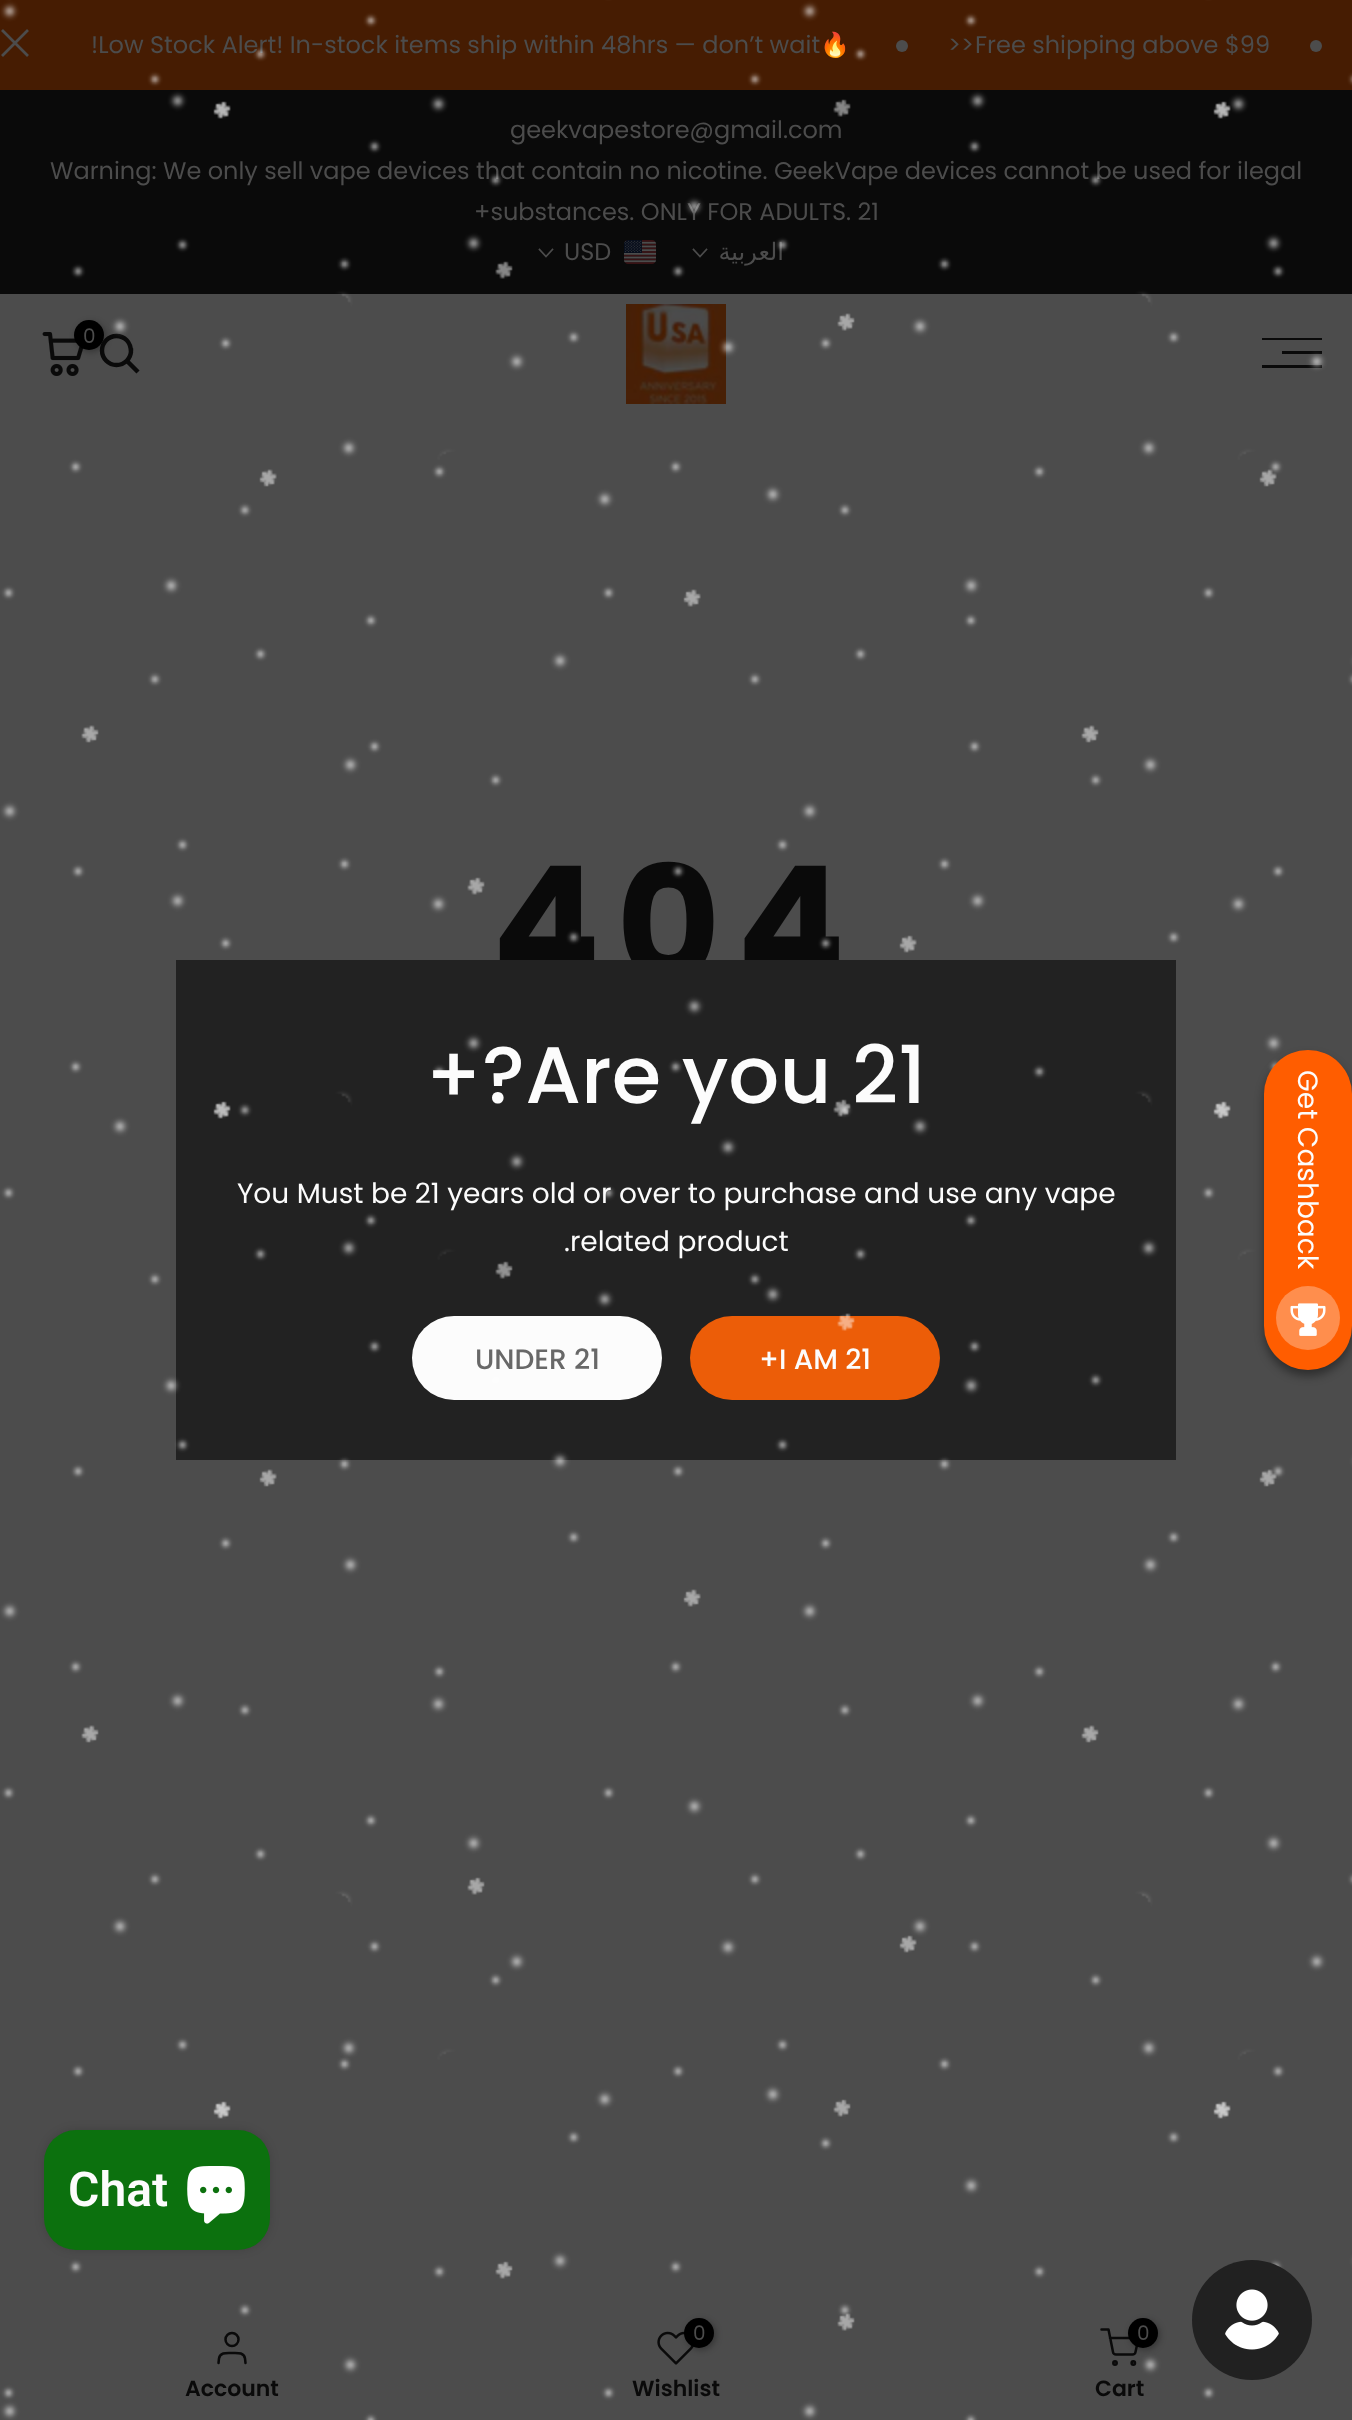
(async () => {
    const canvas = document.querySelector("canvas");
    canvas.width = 1352;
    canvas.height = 2420;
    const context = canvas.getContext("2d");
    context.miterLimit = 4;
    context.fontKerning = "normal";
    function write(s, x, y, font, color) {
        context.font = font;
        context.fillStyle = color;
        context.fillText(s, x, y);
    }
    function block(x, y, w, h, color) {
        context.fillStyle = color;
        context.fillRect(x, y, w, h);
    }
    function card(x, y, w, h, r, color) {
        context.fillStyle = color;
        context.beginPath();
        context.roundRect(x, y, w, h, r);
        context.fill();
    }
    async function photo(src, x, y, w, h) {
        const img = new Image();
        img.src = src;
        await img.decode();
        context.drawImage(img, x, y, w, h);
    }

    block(0, 0, 1352, 2420, "rgb(76, 76, 76)");
    block(0, 0, 1352, 90, "rgb(70, 28, 2)");
    context.beginPath();
    context.moveTo(28, 30);
    context.lineTo(2, 56);
    context.moveTo(28, 56);
    context.lineTo(2, 30);
    context.strokeStyle = "rgb(76, 76, 76)";
    context.lineWidth = 2.8;
    context.stroke();
    write("!Low Stock Alert! In-stock items ship within 48hrs — don’t wait", 91, 53, "24px Poppins", "rgb(76, 76, 76)");
    write("🔥", 820, 53, "24px Noto Color Emoji", "rgb(76, 76, 76)");
    context.beginPath();
    context.arc(902, 46, 6, 0, Math.PI * 2);
    context.fill();
    write(">>", 948, 53, "24px Poppins", "rgb(76, 76, 76)");
    write("Free shipping above $99", 975, 53, "24px Poppins", "rgb(76, 76, 76)");
    context.beginPath();
    context.arc(1316, 46, 6, 0, Math.PI * 2);
    context.fill();
    block(0, 90, 1352, 204, "rgb(10, 10, 10)");
    write("geekvapestore@gmail.com", 510, 138, "24px Poppins", "rgb(76, 76, 76)");
    write("Warning: We only sell vape devices that contain no nicotine. GeekVape devices cannot be used for ilegal", 50, 179, "24px Poppins", "rgb(76, 76, 76)");
    write("+substances. ONLY FOR ADULTS. 21", 474, 220, "24px Poppins", "rgb(76, 76, 76)");
    context.beginPath();
    context.moveTo(552.5, 249.5);
    context.lineTo(546, 256.5);
    context.lineTo(539.5, 249.5);
    context.lineWidth = 1.7;
    context.lineCap = "square";
    context.stroke();
    write("USD", 564, 260, "24px Poppins", "rgb(76, 76, 76)");
    await photo("media/2.png", 624, 240, 32, 24);
    context.beginPath();
    context.moveTo(706.5, 249.5);
    context.lineTo(700, 256.5);
    context.lineTo(693.5, 249.5);
    context.stroke();
    context.direction = "rtl";
    write("العربية", 784, 260, "24px DejaVu Sans", "rgb(76, 76, 76)");
    await photo("media/3.png", 42, 332, 42, 44);
    context.beginPath();
    context.arc(116.5, 350.5, 14.5, 0, Math.PI * 2);
    context.strokeStyle = "rgb(10, 10, 10)";
    context.lineWidth = 4.4;
    context.stroke();
    context.fillStyle = "rgba(0, 0, 0, 0.3)";
    context.filter = "blur(3px)";
    context.beginPath();
    context.roundRect(76, 322, 30, 30, 15);
    context.fill();
    context.filter = "none";
    context.fillStyle = "rgb(0, 0, 0)";
    context.beginPath();
    context.arc(89, 335, 15, 0, Math.PI * 2);
    context.fill();
    context.direction = "ltr";
    write("0", 83, 343, "20px Poppins", "rgb(76, 76, 76)");
    context.beginPath();
    context.moveTo(126.5, 360.5);
    context.lineTo(138, 372);
    context.lineCap = "butt";
    context.stroke();
    await photo("media/4.png", 626, 304, 100, 100);
    block(1262, 365, 60, 3, "rgb(10, 10, 10)");
    block(1282, 351, 40, 3, "rgb(10, 10, 10)");
    block(1262, 338, 60, 2, "rgb(10, 10, 10)");
    context.letterSpacing = "16px";
    write("404", 492, 981, "bold 160px Poppins", "rgb(10, 10, 10)");
    block(176, 960, 1000, 500, "rgb(34, 34, 34)");
    context.letterSpacing = "0px";
    write("+?Are you 21", 425, 1103, "500 80px Poppins", "rgb(252, 252, 252)");
    write("You Must be 21 years old or over to purchase and use any vape", 237, 1203, "28px Poppins", "rgb(252, 252, 252)");
    write(".related product", 564, 1251, "28px Poppins", "rgb(252, 252, 252)");
    card(412, 1316, 250, 84, 42, "rgb(252, 252, 252)");
    write("UNDER 21", 475, 1369, "500 28px Poppins", "rgb(104, 104, 104)");
    card(690, 1316, 250, 84, 42, "rgb(236, 93, 8)");
    write("+I AM 21", 759, 1369, "500 28px Poppins", "rgb(252, 252, 252)");
    context.beginPath();
    context.arc(232, 2339.5, 6.5, 0, Math.PI * 2);
    context.lineWidth = 2.5;
    context.stroke();
    context.beginPath();
    context.moveTo(245.5, 2363);
    context.lineTo(245, 2358.5);
    context.bezierCurveTo(244, 2352, 237, 2353, 232, 2353);
    context.bezierCurveTo(227, 2353, 220, 2352, 219, 2358.5);
    context.lineTo(218.5, 2363);
    context.lineCap = "round";
    context.lineJoin = "round";
    context.stroke();
    write("Account", 185, 2396, "600 22px Poppins", "rgb(10, 10, 10)");
    await photo("media/7.png", 657, 2331, 37, 34);
    context.fillStyle = "rgba(0, 0, 0, 0.3)";
    context.filter = "blur(3px)";
    context.beginPath();
    context.roundRect(686, 2320, 30, 30, 15);
    context.fill();
    context.filter = "none";
    context.fillStyle = "rgb(0, 0, 0)";
    context.beginPath();
    context.arc(699, 2333, 15, 0, Math.PI * 2);
    context.fill();
    write("0", 693, 2340, "20px Poppins", "rgb(76, 76, 76)");
    write("Wishlist", 632, 2396, "600 22px Poppins", "rgb(10, 10, 10)");
    context.beginPath();
    context.moveTo(1101.5, 2329.5);
    context.lineTo(1108.5, 2329.5);
    context.lineTo(1113, 2352);
    context.bezierCurveTo(1113, 2353.5, 1114.5, 2354.5, 1116, 2354.5);
    context.lineTo(1132.5, 2354.5);
    context.bezierCurveTo(1134, 2354.5, 1135.5, 2353.5, 1135.5, 2352);
    context.lineTo(1138.5, 2338);
    context.lineTo(1110, 2338);
    context.stroke();
    context.fillStyle = "rgba(0, 0, 0, 0.3)";
    context.filter = "blur(3px)";
    context.beginPath();
    context.roundRect(1130, 2320, 30, 30, 15);
    context.fill();
    context.filter = "none";
    context.fillStyle = "rgb(0, 0, 0)";
    context.beginPath();
    context.arc(1143, 2333, 15, 0, Math.PI * 2);
    context.fill();
    write("0", 1137, 2340, "20px Poppins", "rgb(76, 76, 76)");
    context.beginPath();
    context.arc(1115, 2363, 1.7, 0, Math.PI * 2);
    context.stroke();
    context.beginPath();
    context.arc(1133.3, 2363, 1.7, 0, Math.PI * 2);
    context.stroke();
    write("Cart", 1095, 2396, "600 22px Poppins", "rgb(10, 10, 10)");
    await photo("media/1.png", 0, 0, 1352, 2420);
    context.fillStyle = "rgba(0, 0, 0, 0.4)";
    context.filter = "blur(5px)";
    context.beginPath();
    context.roundRect(1264, 1056, 88, 320, 44);
    context.fill();
    context.filter = "none";
    card(1264, 1050, 88, 320, 44, "rgb(255, 93, 0)");
    context.font = "28px Poppins";
    context.fillStyle = "rgb(252, 252, 252)";
    context.save();
    context.translate(1298, 1070);
    context.rotate(90 * Math.PI / 180);
    context.fillText("Get Cashback", 0, 0);
    context.restore();
    context.fillStyle = "rgb(255, 142, 77)";
    context.beginPath();
    context.arc(1308, 1318, 32, 0, Math.PI * 2);
    context.fill();
    await photo("media/5.png", 1290, 1303, 36, 33);
    context.fillStyle = "rgba(0, 0, 0, 0.15)";
    context.filter = "blur(5px)";
    context.beginPath();
    context.roundRect(44, 2130, 226, 120, 32);
    context.fill();
    context.filter = "none";
    card(44, 2130, 226, 120, 32, "rgb(12, 113, 14)");
    write("Chat", 68, 2206, "600 48px Roboto", "rgb(252, 252, 252)");
    await photo("media/6.png", 187, 2166, 58, 58);
    context.fillStyle = "rgb(33, 33, 33)";
    context.beginPath();
    context.arc(1252, 2320, 60, 0, Math.PI * 2);
    context.fill();
    await photo("media/8.png", 1225, 2289, 54, 61);
})();
